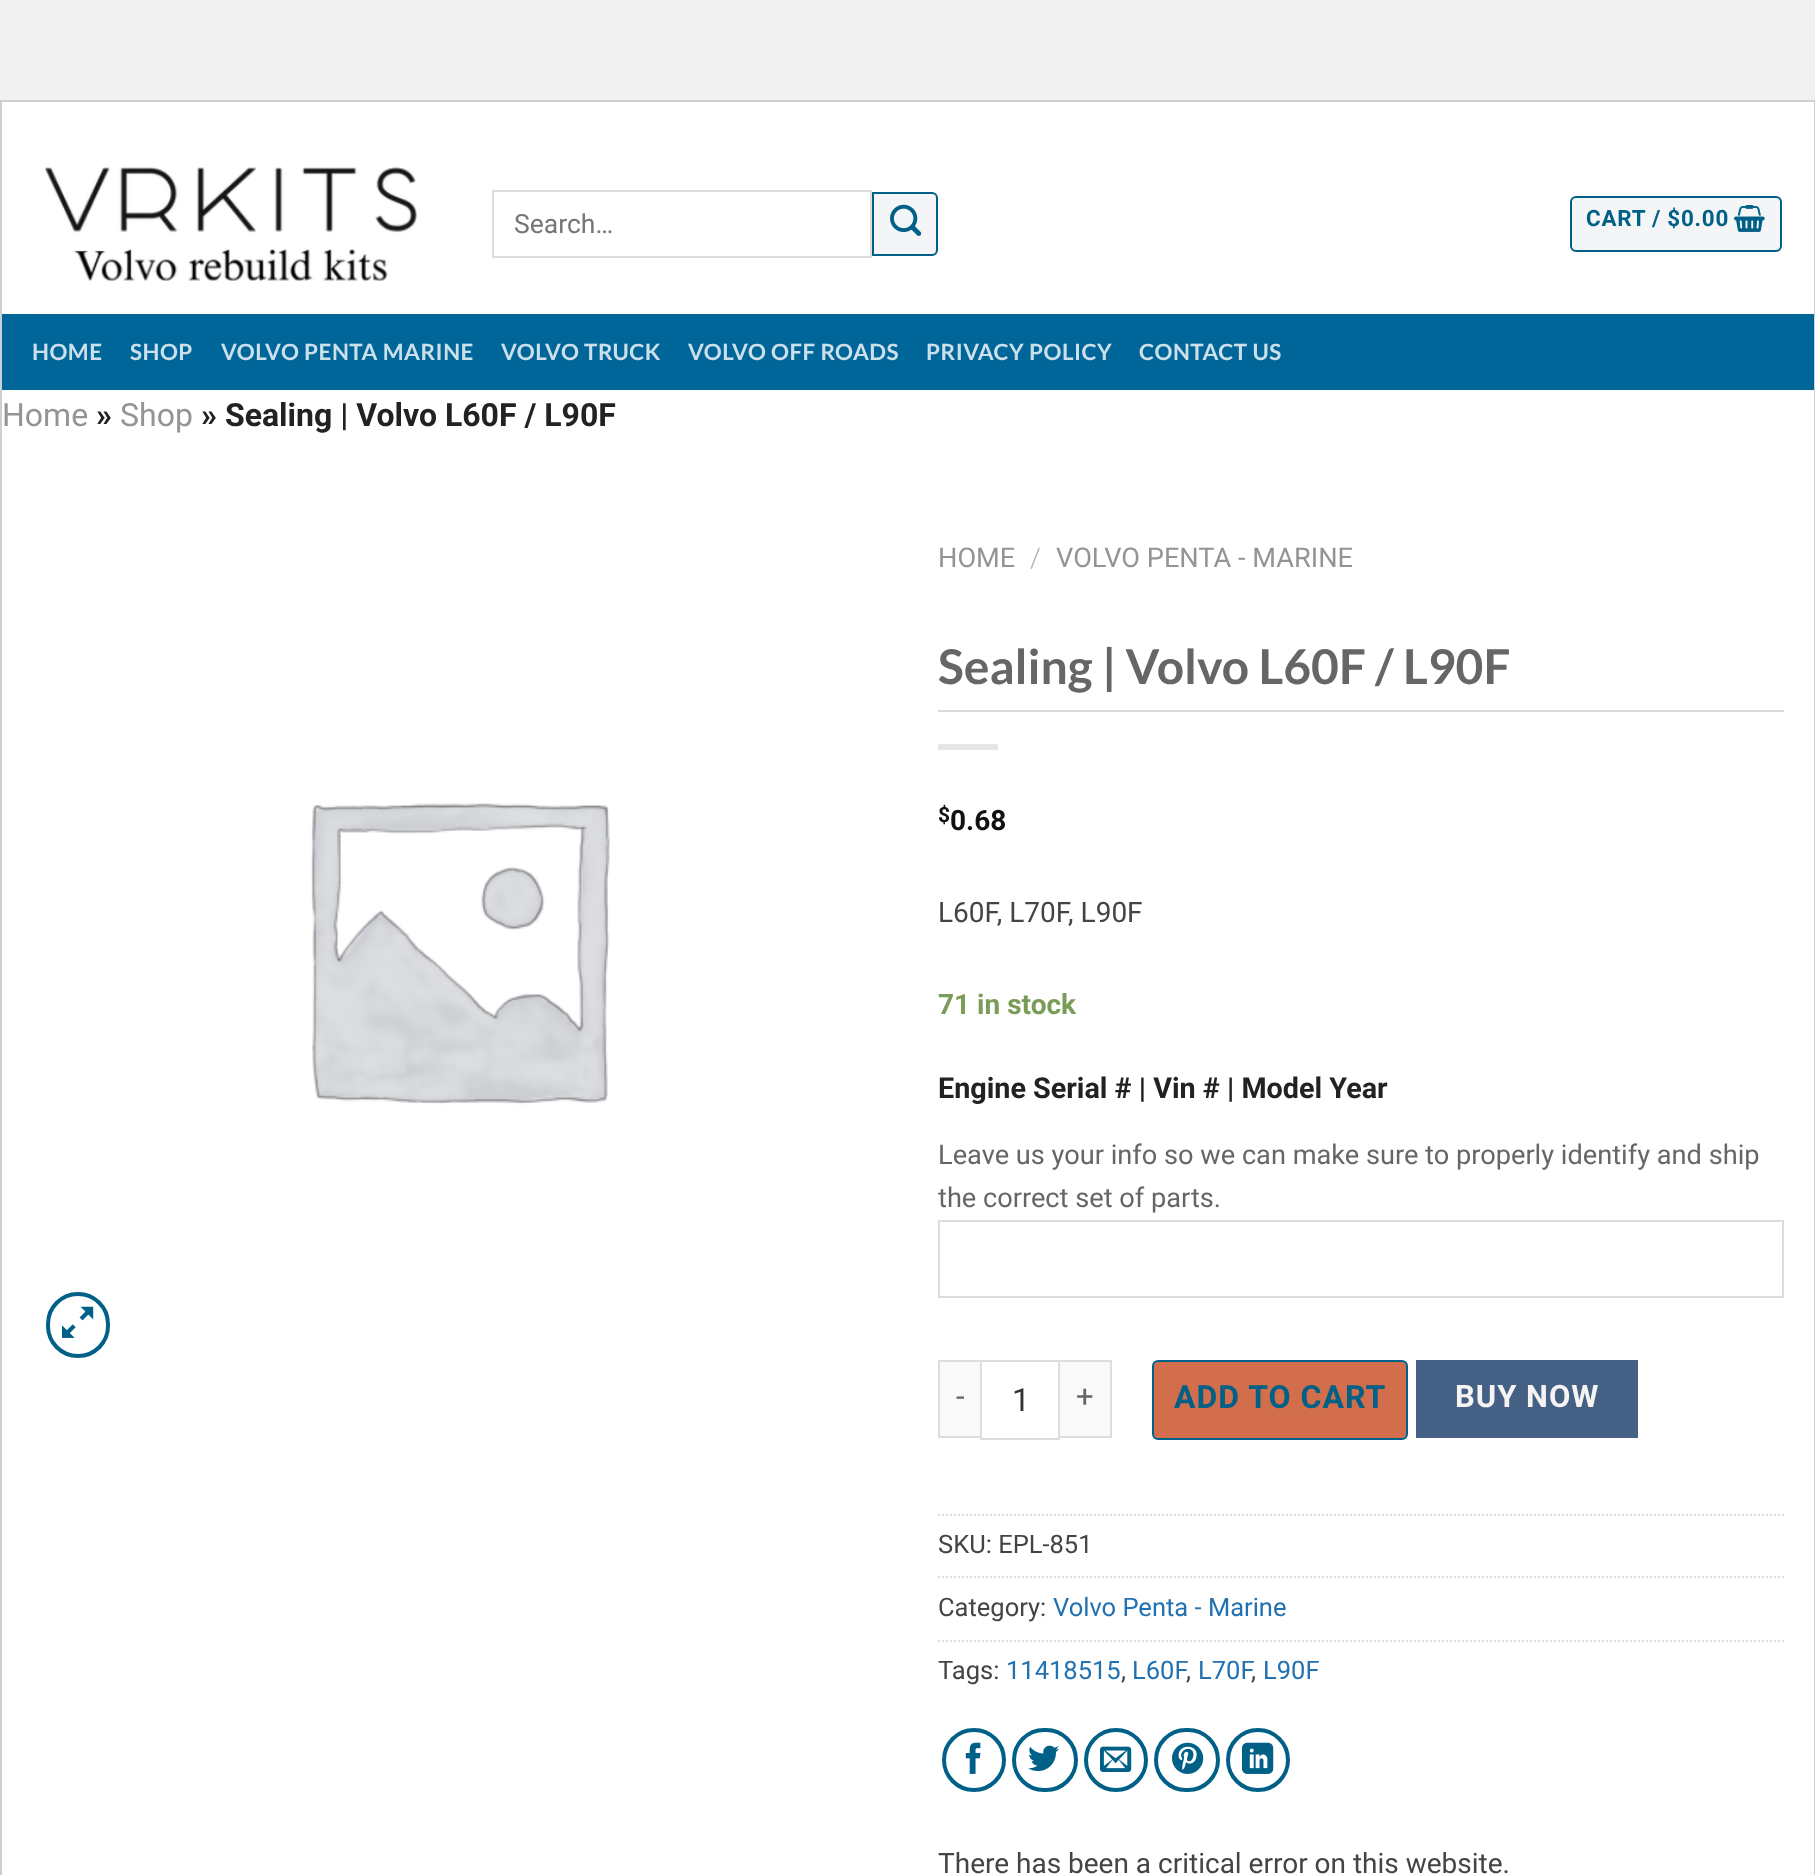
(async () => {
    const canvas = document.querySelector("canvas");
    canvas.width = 1815;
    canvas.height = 1875;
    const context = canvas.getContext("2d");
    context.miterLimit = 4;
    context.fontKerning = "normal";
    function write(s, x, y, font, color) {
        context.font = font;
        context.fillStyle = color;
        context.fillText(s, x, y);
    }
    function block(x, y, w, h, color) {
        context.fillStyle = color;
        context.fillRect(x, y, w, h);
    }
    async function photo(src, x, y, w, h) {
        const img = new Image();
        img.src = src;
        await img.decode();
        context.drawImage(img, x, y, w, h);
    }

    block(0, 0, 1815, 1875, "rgb(241, 241, 241)");
    context.fillStyle = "rgb(255, 255, 255)";
    context.beginPath();
    context.rect(1, 101, 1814, 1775);
    context.fill();
    context.strokeStyle = "rgb(204, 208, 212)";
    context.lineWidth = 2;
    context.stroke();
    await photo("media/1.png", 45, 167, 372, 114);
    context.strokeStyle = "rgb(221, 221, 221)";
    context.strokeRect(493, 191, 378, 66);
    write("Search…", 514, 233, "26.5px Roboto", "rgb(117, 117, 117)");
    context.fillStyle = "rgb(243, 245, 246)";
    context.beginPath();
    context.roundRect(873, 193, 64, 62, [0, 5, 5, 0]);
    context.fill();
    context.strokeStyle = "rgb(1, 96, 135)";
    context.stroke();
    await photo("media/2.png", 890, 204, 32, 32);
    context.beginPath();
    context.roundRect(1571, 197, 210, 54, 5);
    context.fill();
    context.stroke();
    context.letterSpacing = "0.75px";
    write("CART / $0.00", 1586, 226, "bold 22.4px Roboto", "rgb(1, 96, 135)");
    await photo("media/3.png", 1734, 205, 31, 27);
    block(2, 314, 1812, 76, "rgb(0, 102, 153)");
    block(32, 314, 1752, 2, "rgb(7, 99, 145)");
    context.letterSpacing = "0.5px";
    write("HOME", 32, 360, "bold 22.4px Lato", "rgb(204, 224, 235)");
    write("SHOP", 130, 360, "bold 22.4px Lato", "rgb(204, 224, 235)");
    write("VOLVO PENTA MARINE", 221, 360, "bold 22.4px Lato", "rgb(204, 224, 235)");
    write("VOLVO TRUCK", 501, 360, "bold 22.4px Lato", "rgb(204, 224, 235)");
    write("VOLVO OFF ROADS", 688, 360, "bold 22.4px Lato", "rgb(204, 224, 235)");
    write("PRIVACY POLICY", 926, 360, "bold 22.4px Lato", "rgb(204, 224, 235)");
    write("CONTACT US", 1139, 360, "bold 22.4px Lato", "rgb(204, 224, 235)");
    context.letterSpacing = "0px";
    write("Home", 2, 426, "32px Roboto", "rgb(148, 148, 148)");
    write("»", 96, 426, "bold 32px Roboto", "rgb(34, 34, 34)");
    write("Shop", 120, 426, "32px Roboto", "rgb(148, 148, 148)");
    write("» Sealing | Volvo L60F / L90F", 201, 426, "bold 32px Roboto", "rgb(34, 34, 34)");
    await photo("media/4.png", 310, 803, 300, 302);
    context.beginPath();
    context.roundRect(48, 1294, 60, 62, 30);
    context.lineWidth = 4;
    context.stroke();
    await photo("media/5.png", 62, 1306, 32, 32);
    write("HOME", 938, 567, "27.2px Roboto", "rgb(148, 148, 148)");
    write("/", 1030, 567, "300 27.2px Roboto", "rgb(178, 178, 178)");
    write("VOLVO PENTA - MARINE", 1056, 567, "27.2px Roboto", "rgb(148, 148, 148)");
    block(938, 710, 846, 2, "rgb(218, 218, 218)");
    write("Sealing | Volvo L60F / L90F", 938, 684, "bold 48px Lato", "rgb(102, 102, 102)");
    block(938, 744, 60, 6, "rgb(230, 230, 230)");
    write("$", 938, 822, "bold 21px Roboto", "rgb(17, 17, 17)");
    write("0.68", 950, 830, "bold 28px Roboto", "rgb(17, 17, 17)");
    write("L60F, L70F, L90F", 938, 922, "28px Roboto", "rgb(68, 68, 68)");
    write("71 in stock", 938, 1014, "bold 28px Roboto", "rgb(122, 156, 89)");
    write("Engine Serial # | Vin # | Model Year", 938, 1098, "bold 28.75px Roboto", "rgb(34, 34, 34)");
    write("Leave us your info so we can make sure to properly identify and ship", 938, 1164, "27.2px Roboto", "rgb(102, 102, 102)");
    write("the correct set of parts.", 938, 1207, "27.2px Roboto", "rgb(102, 102, 102)");
    context.strokeStyle = "rgb(221, 221, 221)";
    context.lineWidth = 2;
    context.strokeRect(939, 1221, 844, 76);
    block(940, 1362, 40, 74, "rgb(249, 249, 249)");
    block(938, 1360, 42, 2, "rgb(221, 221, 221)");
    block(938, 1436, 42, 2, "rgb(221, 221, 221)");
    block(938, 1360, 2, 78, "rgb(221, 221, 221)");
    context.letterSpacing = "1px";
    write("-", 956, 1407, "31px Roboto", "rgb(102, 102, 102)");
    context.strokeRect(981, 1361, 78, 78);
    context.letterSpacing = "0px";
    write("1", 1012, 1411, "32px Roboto", "rgb(51, 51, 51)");
    block(1060, 1362, 50, 74, "rgb(249, 249, 249)");
    block(1060, 1360, 52, 2, "rgb(221, 221, 221)");
    block(1110, 1360, 2, 78, "rgb(221, 221, 221)");
    block(1060, 1436, 52, 2, "rgb(221, 221, 221)");
    context.letterSpacing = "1px";
    write("+", 1076, 1407, "31px Roboto", "rgb(102, 102, 102)");
    context.fillStyle = "rgb(210, 110, 75)";
    context.beginPath();
    context.roundRect(1153, 1361, 254, 78, 5);
    context.fill();
    context.strokeStyle = "rgb(1, 96, 135)";
    context.stroke();
    write("ADD TO CART", 1174, 1408, "bold 32px Roboto", "rgb(1, 96, 135)");
    block(1416, 1360, 222, 78, "rgb(68, 96, 132)");
    write("BUY NOW", 1455, 1407, "bold 31px Roboto", "rgb(246, 243, 243)");
    context.beginPath();
    context.moveTo(938, 1515);
    context.lineTo(1784, 1515);
    context.strokeStyle = "rgb(221, 221, 221)";
    context.setLineDash([2, 2]);
    context.stroke();
    context.letterSpacing = "0px";
    write("SKU: EPL-851", 938, 1553, "25.5px Roboto", "rgb(68, 68, 68)");
    context.beginPath();
    context.moveTo(938, 1577);
    context.lineTo(1784, 1577);
    context.stroke();
    write("Category:", 938, 1616, "25.5px Roboto", "rgb(68, 68, 68)");
    write("Volvo Penta - Marine", 1053, 1616, "25.5px Roboto", "rgb(34, 113, 177)");
    context.beginPath();
    context.moveTo(938, 1641);
    context.lineTo(1784, 1641);
    context.stroke();
    write("Tags:", 938, 1679, "25.5px Roboto", "rgb(68, 68, 68)");
    write("11418515", 1006, 1679, "25.5px Roboto", "rgb(34, 113, 177)");
    write(",", 1121, 1679, "25.5px Roboto", "rgb(68, 68, 68)");
    write("L60F", 1132, 1679, "25.5px Roboto", "rgb(34, 113, 177)");
    write("L70F", 1198, 1679, "25.5px Roboto", "rgb(34, 113, 177)");
    write("L90F", 1263, 1679, "25.5px Roboto", "rgb(34, 113, 177)");
    write(",", 1186, 1679, "25.5px Roboto", "rgb(68, 68, 68)");
    write(",", 1251, 1679, "25.5px Roboto", "rgb(68, 68, 68)");
    context.beginPath();
    context.arc(974, 1760, 30, 0, Math.PI * 2);
    context.strokeStyle = "rgb(1, 96, 135)";
    context.lineWidth = 4;
    context.setLineDash([]);
    context.stroke();
    await photo("media/6.png", 965, 1742, 16, 32);
    context.beginPath();
    context.roundRect(1014, 1730, 62, 60, 30);
    context.stroke();
    await photo("media/7.png", 1028, 1745, 31, 26);
    context.beginPath();
    context.arc(1116, 1760, 30, 0, Math.PI * 2);
    context.stroke();
    await photo("media/8.png", 1100, 1746, 32, 26);
    context.beginPath();
    context.roundRect(1156, 1730, 62, 60, 30);
    context.stroke();
    await photo("media/9.png", 1172, 1742, 32, 32);
    context.beginPath();
    context.arc(1258, 1760, 30, 0, Math.PI * 2);
    context.stroke();
    await photo("media/10.png", 1242, 1742, 32, 32);
    write("There has been a critical error on this website.", 938, 1873, "28px Roboto", "rgb(68, 68, 68)");
})();
